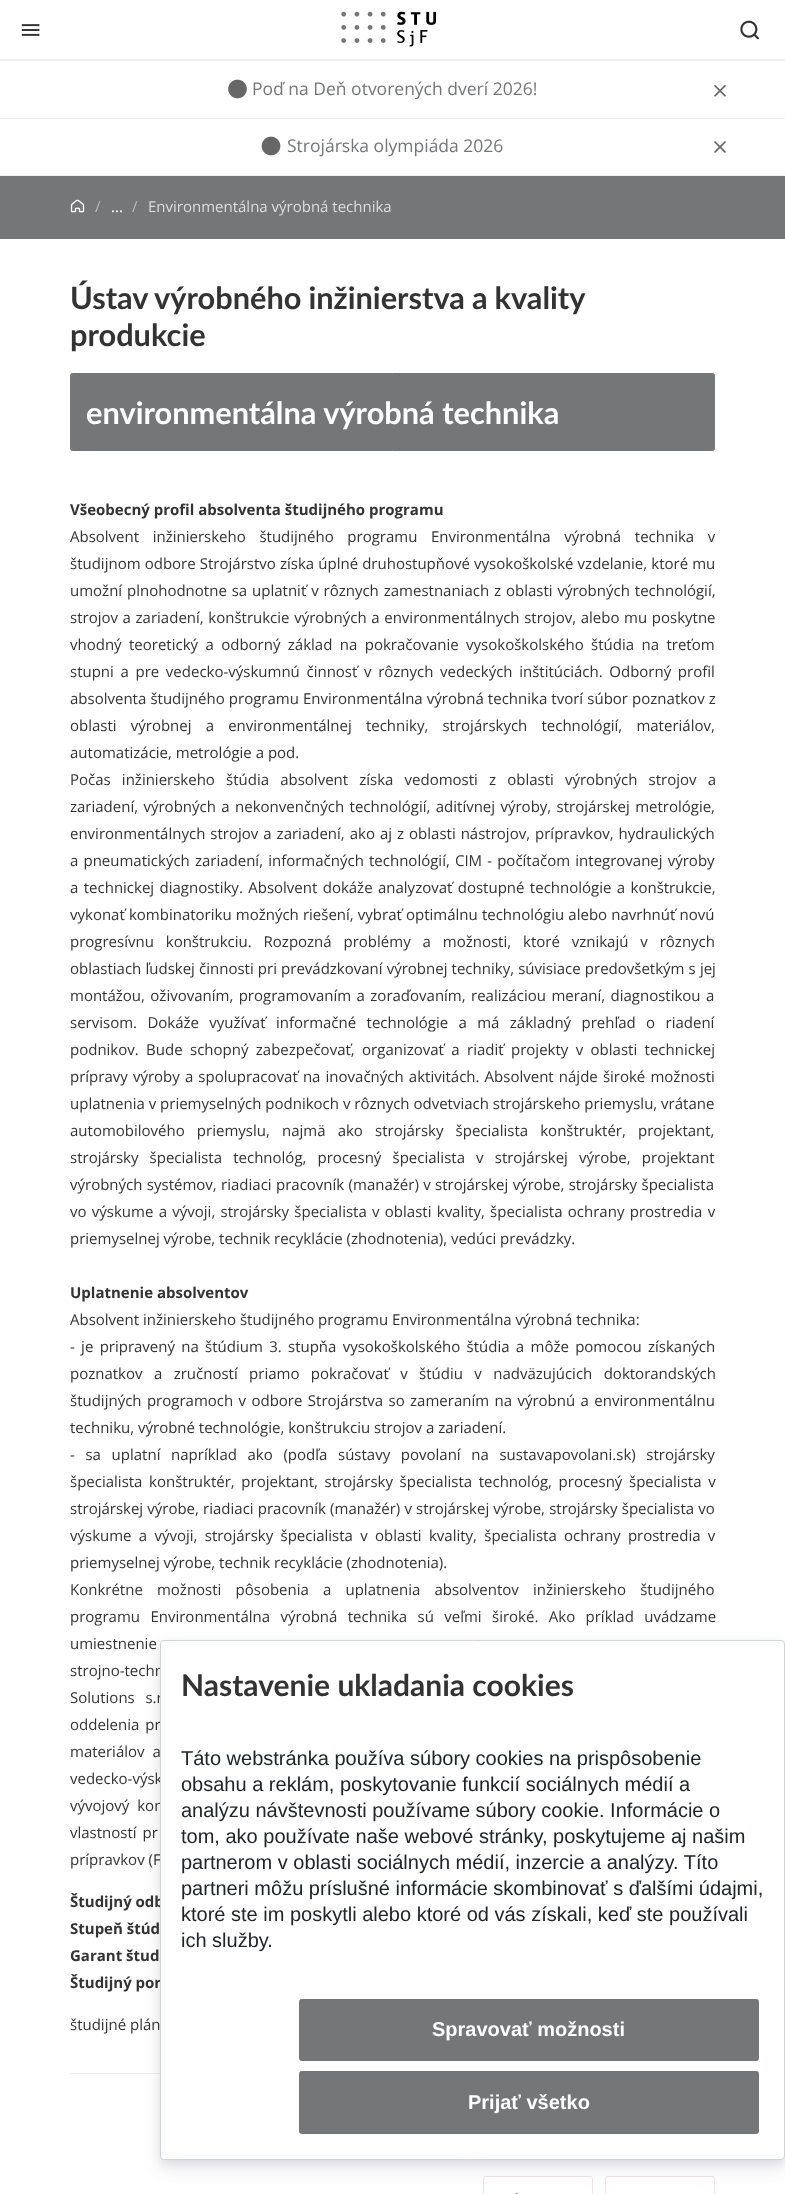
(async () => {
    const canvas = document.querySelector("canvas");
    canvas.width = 785;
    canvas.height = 2194;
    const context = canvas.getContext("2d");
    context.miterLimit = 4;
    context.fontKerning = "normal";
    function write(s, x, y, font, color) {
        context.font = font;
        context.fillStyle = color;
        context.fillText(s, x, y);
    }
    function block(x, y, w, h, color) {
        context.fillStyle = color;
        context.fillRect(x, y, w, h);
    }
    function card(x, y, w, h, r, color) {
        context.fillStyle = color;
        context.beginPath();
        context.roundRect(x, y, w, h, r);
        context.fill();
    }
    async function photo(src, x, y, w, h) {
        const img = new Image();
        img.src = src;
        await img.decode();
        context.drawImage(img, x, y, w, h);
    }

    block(0, 0, 785, 2194, "rgb(255, 255, 255)");
    await photo("media/1.png", 21, 24, 19, 12);
    await photo("media/2.png", 341, 11, 95, 36);
    await photo("media/3.png", 740, 20, 19, 20);
    block(0, 175, 785, 1, "rgb(238, 238, 238)");
    block(0, 59, 785, 2, "rgb(238, 238, 238)");
    await photo("media/4.png", 228, 79, 19, 20);
    write("Poď na Deň otvorených dverí 2026!", 252, 95, "17.5px Open Sans", "rgb(116, 118, 120)");
    await photo("media/5.png", 714, 85, 12, 12);
    block(0, 118, 785, 1, "rgb(238, 238, 238)");
    await photo("media/6.png", 261, 136, 20, 20);
    write("Strojárska olympiáda 2026", 287, 152, "17.5px Open Sans", "rgb(116, 118, 120)");
    await photo("media/7.png", 714, 141, 12, 12);
    block(0, 176, 785, 63, "rgb(116, 118, 120)");
    await photo("media/8.png", 70, 199, 15, 14);
    write("/", 95, 212, "15px Open Sans", "rgb(186, 187, 188)");
    write("...", 111, 212, "15px Open Sans", "rgb(255, 255, 255)");
    write("/", 132, 212, "15px Open Sans", "rgb(186, 187, 188)");
    write("Environmentálna výrobná technika", 148, 212, "15px Open Sans", "rgb(220, 221, 221)");
    context.wordSpacing = "-0.5px";
    write("Ústav výrobného inžinierstva a kvality", 70, 309, "bold 30.75px Lato", "rgb(51, 51, 51)");
    context.wordSpacing = "0px";
    write("produkcie", 70, 346, "bold 30.75px Lato", "rgb(51, 51, 51)");
    context.fillStyle = "rgb(116, 118, 120)";
    context.beginPath();
    context.roundRect(70.5, 373.5, 644, 77, 2);
    context.fill();
    context.strokeStyle = "rgb(116, 118, 120)";
    context.stroke();
    write("environmentálna výrobná technika", 86, 424, "bold 30.75px Lato", "rgb(255, 255, 255)");
    write("Všeobecný profil absolventa študijného programu", 70, 515, "bold 15px Open Sans", "rgb(51, 51, 51)");
    context.wordSpacing = "9.75px";
    write("Absolvent inžinierskeho študijného programu Environmentálna výrobná technika v", 70, 542, "15px Open Sans", "rgb(51, 51, 51)");
    context.wordSpacing = "0.25px";
    write("študijnom odbore Strojárstvo získa úplné druhostupňové vysokoškolské vzdelanie, ktoré mu", 70, 569, "15px Open Sans", "rgb(51, 51, 51)");
    context.wordSpacing = "1px";
    write("umožní plnohodnotne sa uplatniť v rôznych zamestnaniach z oblasti výrobných technológií,", 70, 596, "15px Open Sans", "rgb(51, 51, 51)");
    context.wordSpacing = "0.75px";
    write("strojov a zariadení, konštrukcie výrobných a environmentálnych strojov, alebo mu poskytne", 70, 623, "15px Open Sans", "rgb(51, 51, 51)");
    context.wordSpacing = "3.5px";
    write("vhodný teoretický a odborný základ na pokračovanie vysokoškolského štúdia na treťom", 70, 650, "15px Open Sans", "rgb(51, 51, 51)");
    context.wordSpacing = "2.75px";
    write("stupni a pre vedecko-výskumnú činnosť v rôznych vedeckých inštitúciách. Odborný profil", 70, 677, "15px Open Sans", "rgb(51, 51, 51)");
    context.wordSpacing = "0.25px";
    write("absolventa študijného programu Environmentálna výrobná technika tvorí súbor poznatkov z", 70, 704, "15px Open Sans", "rgb(51, 51, 51)");
    context.wordSpacing = "10.25px";
    write("oblasti výrobnej a environmentálnej techniky, strojárskych technológií, materiálov,", 70, 731, "15px Open Sans", "rgb(51, 51, 51)");
    context.wordSpacing = "0px";
    write("automatizácie, metrológie a pod.", 70, 758, "15px Open Sans", "rgb(51, 51, 51)");
    context.wordSpacing = "7.25px";
    write("Počas inžinierskeho štúdia absolvent získa vedomosti z oblasti výrobných strojov a", 70, 785, "15px Open Sans", "rgb(51, 51, 51)");
    context.wordSpacing = "1.5px";
    write("zariadení, výrobných a nekonvenčných technológií, aditívnej výroby, strojárskej metrológie,", 70, 812, "15px Open Sans", "rgb(51, 51, 51)");
    context.wordSpacing = "1.1px";
    write("environmentálnych strojov a zariadení, ako aj z oblasti nástrojov, prípravkov, hydraulických", 70, 839, "15px Open Sans", "rgb(51, 51, 51)");
    context.wordSpacing = "1.25px";
    write("a pneumatických zariadení, informačných technológií, CIM - počítačom integrovanej výroby", 70, 866, "15px Open Sans", "rgb(51, 51, 51)");
    context.wordSpacing = "1.5px";
    write("a technickej diagnostiky. Absolvent dokáže analyzovať dostupné technológie a konštrukcie,", 70, 893, "15px Open Sans", "rgb(51, 51, 51)");
    context.wordSpacing = "0.25px";
    write("vykonať kombinatoriku možných riešení, vybrať optimálnu technológiu alebo navrhnúť novú", 70, 920, "15px Open Sans", "rgb(51, 51, 51)");
    context.wordSpacing = "8px";
    write("progresívnu konštrukciu. Rozpozná problémy a možnosti, ktoré vznikajú v rôznych", 70, 947, "15px Open Sans", "rgb(51, 51, 51)");
    context.wordSpacing = "0.25px";
    write("oblastiach ľudskej činnosti pri prevádzkovaní výrobnej techniky, súvisiace predovšetkým s jej", 70, 974, "15px Open Sans", "rgb(51, 51, 51)");
    context.wordSpacing = "1.5px";
    write("montážou, oživovaním, programovaním a zoraďovaním, realizáciou meraní, diagnostikou a", 70, 1001, "15px Open Sans", "rgb(51, 51, 51)");
    context.wordSpacing = "6.5px";
    write("servisom. Dokáže využívať informačné technológie a má základný prehľad o riadení", 70, 1028, "15px Open Sans", "rgb(51, 51, 51)");
    context.wordSpacing = "3.5px";
    write("podnikov. Bude schopný zabezpečovať, organizovať a riadiť projekty v oblasti technickej", 70, 1055, "15px Open Sans", "rgb(51, 51, 51)");
    context.wordSpacing = "1.25px";
    write("prípravy výroby a spolupracovať na inovačných aktivitách. Absolvent nájde široké možnosti", 70, 1082, "15px Open Sans", "rgb(51, 51, 51)");
    context.wordSpacing = "0px";
    write("uplatnenia v priemyselných podnikoch v rôznych odvetviach strojárskeho priemyslu, vrátane", 70, 1109, "15px Open Sans", "rgb(51, 51, 51)");
    context.wordSpacing = "8.25px";
    write("automobilového priemyslu, najmä ako strojársky špecialista konštruktér, projektant,", 70, 1136, "15px Open Sans", "rgb(51, 51, 51)");
    context.wordSpacing = "7.25px";
    write("strojársky špecialista technológ, procesný špecialista v strojárskej výrobe, projektant", 70, 1163, "15px Open Sans", "rgb(51, 51, 51)");
    context.wordSpacing = "0.5px";
    write("výrobných systémov, riadiaci pracovník (manažér) v strojárskej výrobe, strojársky špecialista", 70, 1190, "15px Open Sans", "rgb(51, 51, 51)");
    context.wordSpacing = "1.4px";
    write("vo výskume a vývoji, strojársky špecialista v oblasti kvality, špecialista ochrany prostredia v", 70, 1217, "15px Open Sans", "rgb(51, 51, 51)");
    context.wordSpacing = "0px";
    write("priemyselnej výrobe, technik recyklácie (zhodnotenia), vedúci prevádzky.", 70, 1244, "15px Open Sans", "rgb(51, 51, 51)");
    write("Uplatnenie absolventov", 70, 1298, "bold 15px Open Sans", "rgb(51, 51, 51)");
    write("Absolvent inžinierskeho študijného programu Environmentálna výrobná technika:", 70, 1325, "15px Open Sans", "rgb(51, 51, 51)");
    context.wordSpacing = "2.4px";
    write("- je pripravený na štúdium 3. stupňa vysokoškolského štúdia a môže pomocou získaných", 70, 1352, "15px Open Sans", "rgb(51, 51, 51)");
    context.wordSpacing = "7.5px";
    write("poznatkov a zručností priamo pokračovať v štúdiu v nadväzujúcich doktorandských", 70, 1379, "15px Open Sans", "rgb(51, 51, 51)");
    context.wordSpacing = "1.5px";
    write("študijných programoch v odbore Strojárstva so zameraním na výrobnú a environmentálnu", 70, 1406, "15px Open Sans", "rgb(51, 51, 51)");
    context.wordSpacing = "0px";
    write("techniku, výrobné technológie, konštrukciu strojov a zariadení.", 70, 1433, "15px Open Sans", "rgb(51, 51, 51)");
    context.wordSpacing = "6.75px";
    write("- sa uplatní napríklad ako (podľa sústavy povolaní na sustavapovolani.sk) strojársky", 70, 1460, "15px Open Sans", "rgb(51, 51, 51)");
    context.wordSpacing = "2.75px";
    write("špecialista konštruktér, projektant, strojársky špecialista technológ, procesný špecialista v", 70, 1487, "15px Open Sans", "rgb(51, 51, 51)");
    context.wordSpacing = "0.25px";
    write("strojárskej výrobe, riadiaci pracovník (manažér) v strojárskej výrobe, strojársky špecialista vo", 70, 1514, "15px Open Sans", "rgb(51, 51, 51)");
    context.wordSpacing = "3.4px";
    write("výskume a vývoji, strojársky špecialista v oblasti kvality, špecialista ochrany prostredia v", 70, 1541, "15px Open Sans", "rgb(51, 51, 51)");
    context.wordSpacing = "0px";
    write("priemyselnej výrobe, technik recyklácie (zhodnotenia).", 70, 1568, "15px Open Sans", "rgb(51, 51, 51)");
    context.wordSpacing = "10.25px";
    write("Konkrétne možnosti pôsobenia a uplatnenia absolventov inžinierskeho študijného", 70, 1595, "15px Open Sans", "rgb(51, 51, 51)");
    context.wordSpacing = "6.5px";
    write("programu Environmentálna výrobná technika sú veľmi široké. Ako príklad uvádzame", 70, 1622, "15px Open Sans", "rgb(51, 51, 51)");
    context.wordSpacing = "4px";
    write("umiestnenie", 70, 1649, "15px Open Sans", "rgb(51, 51, 51)");
    context.wordSpacing = "8px";
    write("strojno-techn", 70, 1676, "15px Open Sans", "rgb(51, 51, 51)");
    context.wordSpacing = "6.75px";
    write("Solutions s.r", 70, 1703, "15px Open Sans", "rgb(51, 51, 51)");
    context.wordSpacing = "2px";
    write("oddelenia pr", 70, 1730, "15px Open Sans", "rgb(51, 51, 51)");
    context.wordSpacing = "4px";
    write("materiálov a", 70, 1757, "15px Open Sans", "rgb(51, 51, 51)");
    context.wordSpacing = "2px";
    write("vedecko-výsk", 70, 1784, "15px Open Sans", "rgb(51, 51, 51)");
    context.wordSpacing = "4px";
    write("vývojový kon", 70, 1811, "15px Open Sans", "rgb(51, 51, 51)");
    context.wordSpacing = "2px";
    write("vlastností pr", 70, 1838, "15px Open Sans", "rgb(51, 51, 51)");
    context.wordSpacing = "0px";
    write("prípravkov (F", 70, 1865, "15px Open Sans", "rgb(51, 51, 51)");
    write("Študijný odb", 70, 1907, "bold 15px Open Sans", "rgb(51, 51, 51)");
    write("Stupeň štúd", 70, 1934, "bold 15px Open Sans", "rgb(51, 51, 51)");
    write("Garant štud", 70, 1961, "bold 15px Open Sans", "rgb(51, 51, 51)");
    write("Študijný por", 70, 1988, "bold 15px Open Sans", "rgb(51, 51, 51)");
    write("študijné plán", 70, 2030, "15px Open Sans", "rgb(51, 51, 51)");
    block(70, 2073, 90, 1, "rgb(238, 238, 238)");
    context.beginPath();
    context.roundRect(483.5, 2176.5, 109, 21, 2);
    context.strokeStyle = "rgb(240, 228, 230)";
    context.stroke();
    await photo("media/9.png", 515, 2193, 4, 1);
    context.beginPath();
    context.roundRect(605.5, 2176.5, 109, 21, 2);
    context.stroke();
    context.fillStyle = "rgba(0, 0, 0, 0.07)";
    context.filter = "blur(4px)";
    context.beginPath();
    context.roundRect(160, 1644, 625, 520, 4);
    context.fill();
    context.filter = "none";
    context.fillStyle = "rgba(50, 50, 93, 0.1)";
    context.filter = "blur(9px)";
    context.beginPath();
    context.roundRect(160, 1649, 625, 520, 4);
    context.fill();
    context.filter = "none";
    card(161, 1641, 623, 518, 2.5, "rgb(255, 255, 255)");
    context.beginPath();
    context.roundRect(160.5, 1640.5, 624, 519, 3.5);
    context.strokeStyle = "rgb(206, 212, 218)";
    context.stroke();
    write("Nastavenie ukladania cookies", 181, 1696, "bold 30px Lato", "rgb(51, 51, 51)");
    write("Táto webstránka používa súbory cookies na prispôsobenie", 181, 1765, "20px Liberation Sans", "rgb(33, 37, 41)");
    write("obsahu a reklám, poskytovanie funkcií sociálnych médií a", 181, 1791, "20px Liberation Sans", "rgb(33, 37, 41)");
    write("analýzu návštevnosti používame súbory cookie. Informácie o", 181, 1817, "20px Liberation Sans", "rgb(33, 37, 41)");
    write("tom, ako používate naše webové stránky, poskytujeme aj našim", 181, 1843, "20px Liberation Sans", "rgb(33, 37, 41)");
    write("partnerom v oblasti sociálnych médií, inzercie a analýzy. Títo", 181, 1869, "20px Liberation Sans", "rgb(33, 37, 41)");
    write("partneri môžu príslušné informácie skombinovať s ďalšími údajmi,", 181, 1895, "20px Liberation Sans", "rgb(33, 37, 41)");
    write("ktoré ste im poskytli alebo ktoré od vás získali, keď ste používali", 181, 1921, "20px Liberation Sans", "rgb(33, 37, 41)");
    write("ich služby.", 181, 1947, "20px Liberation Sans", "rgb(33, 37, 41)");
    context.fillStyle = "rgb(116, 118, 120)";
    context.beginPath();
    context.roundRect(299.5, 1999.5, 459, 61, 2);
    context.fill();
    context.strokeStyle = "rgb(116, 118, 120)";
    context.stroke();
    write("Spravovať možnosti", 432, 2036, "bold 20px Liberation Sans", "rgb(255, 255, 255)");
    context.fillStyle = "rgb(116, 118, 120)";
    context.beginPath();
    context.roundRect(299.5, 2071.5, 459, 62, 2);
    context.fill();
    context.stroke();
    write("Prijať všetko", 468, 2109, "bold 20px Liberation Sans", "rgb(255, 255, 255)");
})();
